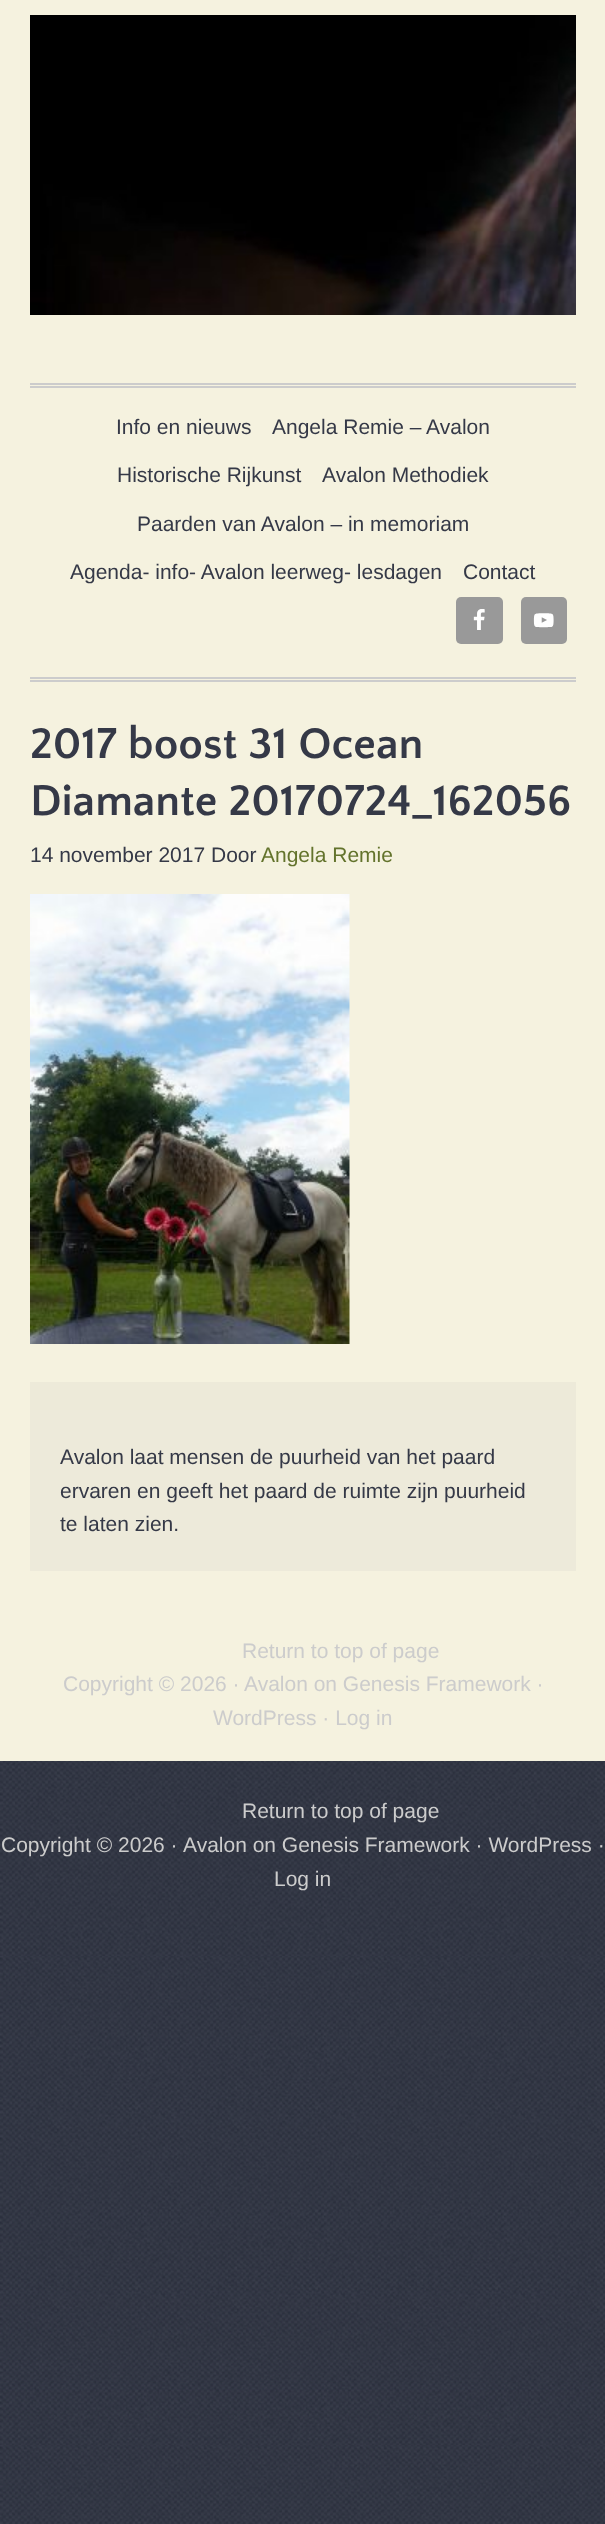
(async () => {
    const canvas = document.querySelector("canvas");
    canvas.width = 605;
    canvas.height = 2524;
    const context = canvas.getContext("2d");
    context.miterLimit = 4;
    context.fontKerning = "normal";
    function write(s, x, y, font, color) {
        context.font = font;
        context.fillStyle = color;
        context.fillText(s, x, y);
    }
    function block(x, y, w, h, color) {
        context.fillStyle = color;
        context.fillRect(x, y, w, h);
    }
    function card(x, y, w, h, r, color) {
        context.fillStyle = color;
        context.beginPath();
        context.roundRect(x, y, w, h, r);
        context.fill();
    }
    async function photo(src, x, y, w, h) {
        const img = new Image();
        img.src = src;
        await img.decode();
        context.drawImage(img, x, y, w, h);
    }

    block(0, 0, 605, 2524, "rgb(255, 255, 255)");
    await photo("media/1.png", 0, 1761, 605, 763);
    block(0, 0, 605, 1761, "rgb(245, 242, 223)");
    await photo("media/2.png", 30, 15, 546, 300);
    block(30, 383, 546, 2, "rgb(204, 204, 204)");
    block(30, 386, 546, 2, "rgb(204, 204, 204)");
    block(30, 677, 546, 2, "rgb(204, 204, 204)");
    block(30, 680, 546, 2, "rgb(204, 204, 204)");
    write("Info en nieuws", 116, 434, "21px Liberation Sans", "rgb(53, 57, 71)");
    write("Angela Remie – Avalon", 272, 434, "21px Liberation Sans", "rgb(53, 57, 71)");
    write("Historische Rijkunst", 117, 482, "21px Liberation Sans", "rgb(53, 57, 71)");
    write("Avalon Methodiek", 322, 482, "21px Liberation Sans", "rgb(53, 57, 71)");
    write("Paarden van Avalon – in memoriam", 137, 531, "21px Liberation Sans", "rgb(53, 57, 71)");
    write("Agenda- info- Avalon leerweg- lesdagen", 70, 579, "21px Liberation Sans", "rgb(53, 57, 71)");
    write("Contact", 463, 579, "21px Liberation Sans", "rgb(53, 57, 71)");
    card(456, 597, 47, 47, 5, "rgb(153, 153, 153)");
    await photo("media/3.png", 473, 609, 12, 21);
    card(521, 597, 46, 47, 5, "rgb(153, 153, 153)");
    await photo("media/4.png", 533, 613, 21, 15);
    write("2017 boost 31 Ocean", 30, 758, "bold 45px Quattrocento Sans", "rgb(53, 57, 71)");
    write("Diamante 20170724_162056", 30, 815, "bold 45px Quattrocento Sans", "rgb(53, 57, 71)");
    write("14 november 2017 Door", 30, 862, "21px Liberation Sans", "rgb(53, 57, 71)");
    write("Angela Remie", 261, 862, "21px Liberation Sans", "rgb(99, 115, 44)");
    await photo("media/5.png", 30, 894, 320, 450);
    block(30, 1382, 546, 28, "rgb(237, 234, 217)");
    block(30, 1410, 546, 161, "rgb(237, 234, 218)");
    write("Avalon laat mensen de puurheid van het paard", 60, 1464, "21px Liberation Sans", "rgb(53, 57, 71)");
    write("ervaren en geeft het paard de ruimte zijn puurheid", 60, 1498, "21px Liberation Sans", "rgb(53, 57, 71)");
    write("te laten zien.", 60, 1531, "21px Liberation Sans", "rgb(53, 57, 71)");
    write("Return to top of page", 242, 1658, "21px Liberation Sans", "rgb(204, 204, 204)");
    write("Copyright © 2026 ·", 63, 1691, "21px Liberation Sans", "rgb(204, 204, 204)");
    write("Avalon on Genesis Framework ·", 244, 1691, "21px Liberation Sans", "rgb(204, 204, 204)");
    write("WordPress · Log in", 213, 1725, "21px Liberation Sans", "rgb(204, 204, 204)");
    write("Return to top of page", 242, 1818, "21px Liberation Sans", "rgb(204, 204, 204)");
    write("Copyright © 2026 ·", 1, 1852, "21px Liberation Sans", "rgb(204, 204, 204)");
    write("Avalon on Genesis Framework · WordPress ·", 183, 1852, "21px Liberation Sans", "rgb(204, 204, 204)");
    write("Log in", 274, 1886, "21px Liberation Sans", "rgb(204, 204, 204)");
})();
